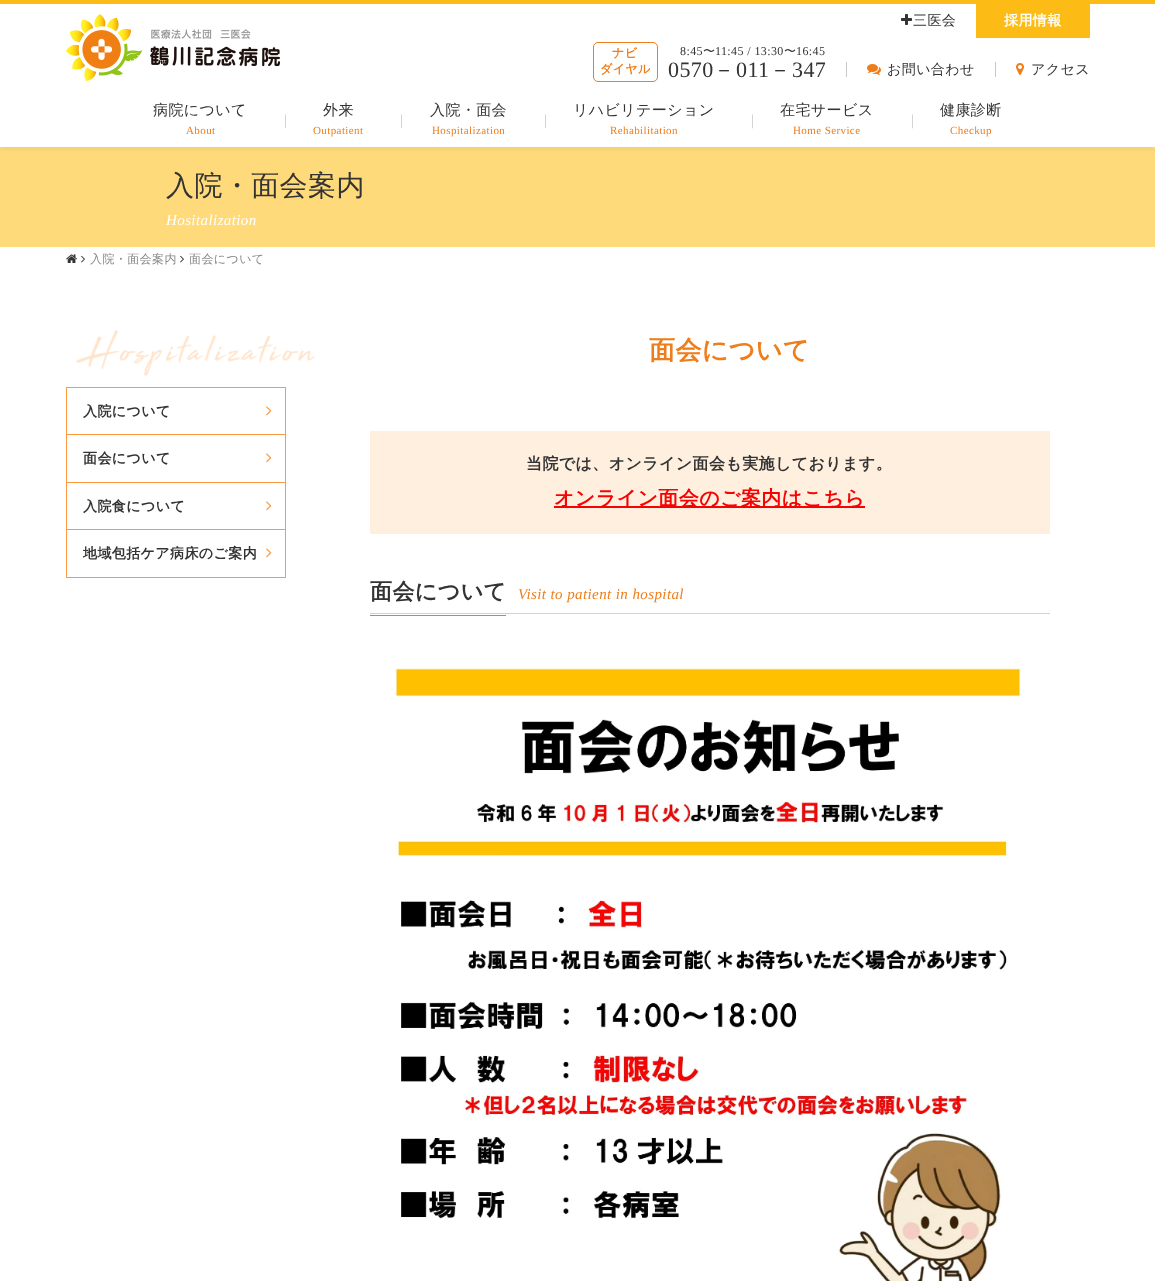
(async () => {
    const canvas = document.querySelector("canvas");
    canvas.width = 1155;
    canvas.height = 1281;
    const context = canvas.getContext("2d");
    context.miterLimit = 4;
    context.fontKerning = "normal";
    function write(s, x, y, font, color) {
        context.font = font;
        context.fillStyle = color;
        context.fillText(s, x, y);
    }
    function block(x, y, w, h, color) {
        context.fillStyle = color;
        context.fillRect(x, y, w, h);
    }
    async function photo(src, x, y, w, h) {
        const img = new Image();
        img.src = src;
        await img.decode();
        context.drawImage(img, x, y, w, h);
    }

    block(0, 0, 1155, 1281, "rgb(255, 255, 255)");
    block(0, 0, 1155, 4, "rgb(252, 188, 21)");
    block(0, 147, 1155, 100, "rgb(255, 218, 122)");
    context.save();
    context.beginPath();
    context.rect(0, 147, 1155, 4);
    context.clip();
    context.fillStyle = "rgba(51, 51, 51, 0.08)";
    context.filter = "blur(3px)";
    context.beginPath();
    context.rect(0, 6, 1155, 143);
    context.fill();
    context.filter = "none";
    context.restore();
    await photo("media/1.png", 66, 14, 214, 67);
    await photo("media/2.png", 901, 14, 11, 11);
    context.letterSpacing = "0.4px";
    write("三医会", 913, 25, "500 14px WenQuanYi Zen Hei", "rgb(51, 51, 51)");
    block(976, 4, 114, 34, "rgb(252, 188, 21)");
    write("採用情報", 1004, 25, "bold 14px WenQuanYi Zen Hei", "rgb(255, 255, 255)");
    context.beginPath();
    context.roundRect(593.5, 42.5, 64, 39, 4.5);
    context.strokeStyle = "rgb(239, 125, 26)";
    context.stroke();
    write("ナビ", 612, 57, "bold 12px WenQuanYi Zen Hei", "rgb(239, 125, 26)");
    write("ダイヤル", 600, 73, "bold 12px WenQuanYi Zen Hei", "rgb(239, 125, 26)");
    write("8:45", 680, 55, "12px Liberation Serif", "rgb(51, 51, 51)");
    write("〜", 703, 55, "500 12px WenQuanYi Zen Hei", "rgb(51, 51, 51)");
    write("11:45 / 13:30", 715, 55, "12px Liberation Serif", "rgb(51, 51, 51)");
    write("〜", 784, 55, "500 12px WenQuanYi Zen Hei", "rgb(51, 51, 51)");
    write("16:45", 796, 55, "12px Liberation Serif", "rgb(51, 51, 51)");
    write("0570", 668, 77, "22px Liberation Serif", "rgb(51, 51, 51)");
    write("－", 713, 77, "500 22px WenQuanYi Zen Hei", "rgb(51, 51, 51)");
    write("011", 736, 77, "22px Liberation Serif", "rgb(51, 51, 51)");
    write("－", 769, 77, "500 22px WenQuanYi Zen Hei", "rgb(51, 51, 51)");
    write("347", 792, 77, "22px Liberation Serif", "rgb(51, 51, 51)");
    block(846, 62, 1, 15, "rgb(200, 200, 200)");
    await photo("media/3.png", 867, 64, 14, 11);
    write("お問い合わせ", 887, 74, "500 14px WenQuanYi Zen Hei", "rgb(51, 51, 51)");
    block(995, 62, 1, 15, "rgb(200, 200, 200)");
    await photo("media/4.png", 1016, 63, 8, 12);
    write("アクセス", 1031, 74, "500 14px WenQuanYi Zen Hei", "rgb(51, 51, 51)");
    write("病院について", 153, 115, "500 15px WenQuanYi Zen Hei", "rgb(51, 51, 51)");
    write("About", 186, 134, "11px Liberation Serif", "rgb(239, 125, 26)");
    write("|", 284, 125, "15px Liberation Serif", "rgb(200, 200, 200)");
    write("外来", 323, 115, "500 15px WenQuanYi Zen Hei", "rgb(51, 51, 51)");
    write("Outpatient", 313, 134, "11px Liberation Serif", "rgb(239, 125, 26)");
    write("|", 400, 125, "15px Liberation Serif", "rgb(200, 200, 200)");
    write("入院・面会", 430, 115, "500 15px WenQuanYi Zen Hei", "rgb(51, 51, 51)");
    write("Hospitalization", 432, 134, "11px Liberation Serif", "rgb(239, 125, 26)");
    write("|", 544, 125, "15px Liberation Serif", "rgb(200, 200, 200)");
    write("リハビリテーション", 573, 115, "500 15px WenQuanYi Zen Hei", "rgb(51, 51, 51)");
    write("Rehabilitation", 610, 134, "11px Liberation Serif", "rgb(239, 125, 26)");
    write("|", 751, 125, "15px Liberation Serif", "rgb(200, 200, 200)");
    write("在宅サービス", 780, 115, "500 15px WenQuanYi Zen Hei", "rgb(51, 51, 51)");
    write("Home Service", 793, 134, "11px Liberation Serif", "rgb(239, 125, 26)");
    write("|", 911, 125, "15px Liberation Serif", "rgb(200, 200, 200)");
    write("健康診断", 940, 115, "500 15px WenQuanYi Zen Hei", "rgb(51, 51, 51)");
    write("Checkup", 950, 134, "11px Liberation Serif", "rgb(239, 125, 26)");
    write("入院・面会案内", 166, 195, "500 28px WenQuanYi Zen Hei", "rgb(51, 51, 51)");
    write("Hositalization", 166, 225, "italic 15px Liberation Serif", "rgb(255, 255, 255)");
    await photo("media/5.png", 66, 254, 11, 9);
    await photo("media/6.png", 81, 255, 4, 8);
    write("入院・面会案内", 90, 263, "500 12px WenQuanYi Zen Hei", "rgb(136, 136, 136)");
    await photo("media/6.png", 180, 255, 4, 8);
    write("面会について", 189, 263, "500 12px WenQuanYi Zen Hei", "rgb(136, 136, 136)");
    await photo("media/7.png", 76, 330, 239, 46);
    block(66, 387, 220, 1, "rgb(253, 153, 66)");
    block(285, 387, 1, 47, "rgb(253, 153, 66)");
    block(66, 387, 1, 47, "rgb(253, 153, 66)");
    write("入院について", 83, 416, "bold 14px WenQuanYi Zen Hei", "rgb(51, 51, 51)");
    await photo("media/8.png", 266, 406, 6, 10);
    block(66, 434, 220, 1, "rgb(253, 153, 66)");
    block(285, 434, 1, 48, "rgb(253, 153, 66)");
    block(66, 434, 1, 48, "rgb(253, 153, 66)");
    write("面会について", 83, 463, "bold 14px WenQuanYi Zen Hei", "rgb(51, 51, 51)");
    await photo("media/8.png", 266, 453, 6, 10);
    block(66, 482, 220, 1, "rgb(253, 153, 66)");
    block(285, 482, 1, 47, "rgb(253, 153, 66)");
    block(66, 482, 1, 47, "rgb(253, 153, 66)");
    write("入院食について", 83, 511, "bold 14px WenQuanYi Zen Hei", "rgb(51, 51, 51)");
    await photo("media/8.png", 266, 501, 6, 10);
    context.strokeStyle = "rgb(253, 153, 66)";
    context.strokeRect(66.5, 529.5, 219, 48);
    write("地域包括ケア病床のご案内", 83, 558, "bold 14px WenQuanYi Zen Hei", "rgb(51, 51, 51)");
    await photo("media/8.png", 266, 548, 6, 10);
    write("面会について", 649, 359, "bold 26px WenQuanYi Zen Hei", "rgb(239, 125, 26)");
    block(370, 431, 680, 103, "rgb(255, 239, 222)");
    write("当院では、オンライン面会も実施しております。", 526, 469, "bold 16px WenQuanYi Zen Hei", "rgb(51, 51, 51)");
    block(554, 506, 311, 2, "rgb(247, 3, 3)");
    write("オンライン面会のご案内はこちら", 554, 505, "bold 20px WenQuanYi Zen Hei", "rgb(247, 3, 3)");
    block(370, 613, 680, 1, "rgb(210, 210, 210)");
    write("面会について", 370, 599, "bold 22px WenQuanYi Zen Hei", "rgb(51, 51, 51)");
    block(370, 615, 136, 1, "rgb(239, 125, 26)");
    write("Visit to patient in hospital", 518, 599, "italic 15px Liberation Serif", "rgb(239, 125, 26)");
    await photo("media/9.png", 395, 665, 626, 616);
})();
